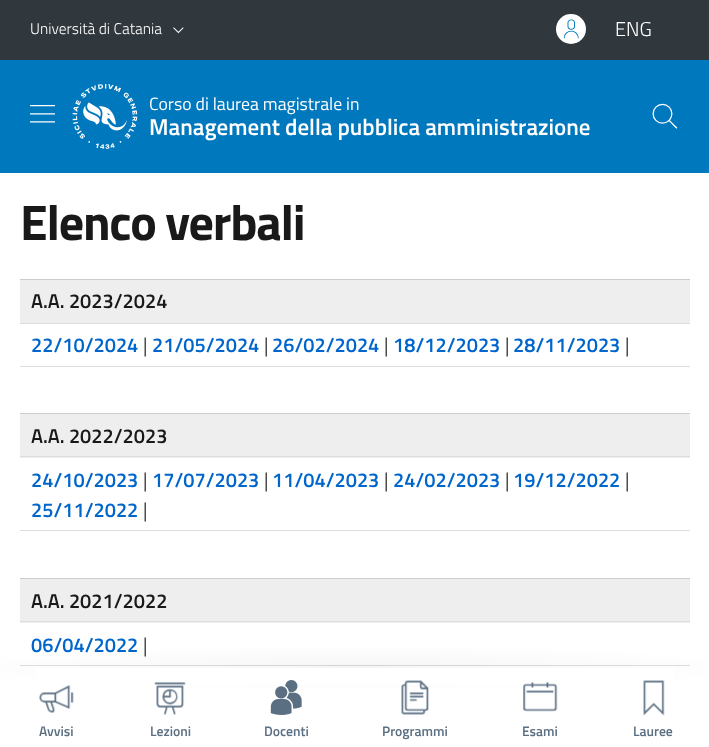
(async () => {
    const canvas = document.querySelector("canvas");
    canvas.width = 709;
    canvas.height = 747;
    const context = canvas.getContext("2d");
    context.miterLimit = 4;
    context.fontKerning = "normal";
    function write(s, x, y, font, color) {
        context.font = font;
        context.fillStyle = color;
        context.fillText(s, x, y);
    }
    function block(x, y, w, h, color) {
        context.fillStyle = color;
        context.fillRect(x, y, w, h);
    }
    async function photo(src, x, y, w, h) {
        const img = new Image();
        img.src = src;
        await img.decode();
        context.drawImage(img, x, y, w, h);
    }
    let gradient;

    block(0, 0, 709, 747, "rgb(255, 255, 255)");
    block(0, 0, 709, 60, "rgb(48, 55, 61)");
    write("Università di Catania", 30, 34, "300 15.5px Titillium Web", "rgb(255, 255, 255)");
    await photo("media/1.png", 173, 27, 11, 7);
    context.beginPath();
    context.arc(571, 29, 15, 0, Math.PI * 2);
    context.fill();
    await photo("media/2.png", 563, 19, 16, 20);
    write("ENG", 615, 36, "300 20px Titillium Web", "rgb(255, 255, 255)");
    block(0, 60, 709, 113, "rgb(0, 120, 189)");
    await photo("media/3.png", 30, 105, 25, 18);
    await photo("media/4.png", 72, 84, 66, 65);
    write("Corso di laurea magistrale in", 149, 110, "17.75px Titillium Web", "rgb(255, 255, 255)");
    write("Management della pubblica amministrazione", 149, 135, "600 23px Titillium Web", "rgb(255, 255, 255)");
    await photo("media/5.png", 652, 103, 26, 26);
    context.letterSpacing = "-1.25px";
    write("Elenco verbali", 20, 240, "bold 50px Titillium Web", "rgb(25, 25, 26)");
    block(20, 279, 670, 1, "rgb(204, 204, 204)");
    block(20, 280, 670, 43, "rgb(238, 238, 238)");
    block(20, 323, 670, 1, "rgb(221, 221, 221)");
    context.letterSpacing = "0px";
    write("A.A. 2023/2024", 31, 308, "600 20px Titillium Web", "rgb(25, 25, 26)");
    block(20, 366, 670, 1, "rgb(221, 221, 221)");
    write("22/10/2024", 31, 352, "600 20px Titillium Web", "rgb(0, 102, 204)");
    write("|", 143, 352, "300 20px Titillium Web", "rgb(25, 25, 26)");
    write("21/05/2024", 152, 352, "600 20px Titillium Web", "rgb(0, 102, 204)");
    write("|", 264, 352, "300 20px Titillium Web", "rgb(25, 25, 26)");
    write("26/02/2024", 272, 352, "600 20px Titillium Web", "rgb(0, 102, 204)");
    write("|", 384, 352, "300 20px Titillium Web", "rgb(25, 25, 26)");
    write("18/12/2023", 393, 352, "600 20px Titillium Web", "rgb(0, 102, 204)");
    write("|", 505, 352, "300 20px Titillium Web", "rgb(25, 25, 26)");
    write("28/11/2023", 513, 352, "600 20px Titillium Web", "rgb(0, 102, 204)");
    write("|", 625, 352, "300 20px Titillium Web", "rgb(25, 25, 26)");
    block(20, 413, 670, 1, "rgb(204, 204, 204)");
    block(20, 414, 670, 44, "rgb(238, 238, 238)");
    block(20, 456, 670, 1, "rgb(221, 221, 221)");
    write("A.A. 2022/2023", 31, 443, "600 20px Titillium Web", "rgb(25, 25, 26)");
    block(20, 530, 670, 1, "rgb(221, 221, 221)");
    write("24/10/2023", 31, 487, "600 20px Titillium Web", "rgb(0, 102, 204)");
    write("|", 143, 487, "300 20px Titillium Web", "rgb(25, 25, 26)");
    write("17/07/2023", 152, 487, "600 20px Titillium Web", "rgb(0, 102, 204)");
    write("|", 264, 487, "300 20px Titillium Web", "rgb(25, 25, 26)");
    write("11/04/2023", 272, 487, "600 20px Titillium Web", "rgb(0, 102, 204)");
    write("|", 384, 487, "300 20px Titillium Web", "rgb(25, 25, 26)");
    write("24/02/2023", 393, 487, "600 20px Titillium Web", "rgb(0, 102, 204)");
    write("|", 505, 487, "300 20px Titillium Web", "rgb(25, 25, 26)");
    write("19/12/2022", 513, 487, "600 20px Titillium Web", "rgb(0, 102, 204)");
    write("|", 625, 487, "300 20px Titillium Web", "rgb(25, 25, 26)");
    write("25/11/2022", 31, 517, "600 20px Titillium Web", "rgb(0, 102, 204)");
    write("|", 143, 517, "300 20px Titillium Web", "rgb(25, 25, 26)");
    block(20, 578, 670, 1, "rgb(204, 204, 204)");
    block(20, 579, 670, 44, "rgb(238, 238, 238)");
    block(20, 621, 670, 1, "rgb(221, 221, 221)");
    write("A.A. 2021/2022", 31, 608, "600 20px Titillium Web", "rgb(25, 25, 26)");
    block(20, 665, 670, 1, "rgb(221, 221, 221)");
    write("06/04/2022", 31, 652, "600 20px Titillium Web", "rgb(0, 102, 204)");
    write("|", 143, 652, "300 20px Titillium Web", "rgb(25, 25, 26)");
    gradient = context.createRadialGradient(355, 12358, 0, 355, 12358, 703);
    gradient.addColorStop(0, "rgba(0, 0, 0, 0.04)");
    gradient.addColorStop(0.6, "rgba(0, 0, 0, 0)");
    context.fillStyle = gradient;
    context.beginPath();
    context.ellipse(355, 667.5, 497, 27, 0, 0, Math.PI * 2);
    context.save();
    context.clip();
    context.scale(1, 38 / 703);
    context.fillRect(0, 0, 709, 13820);
    context.restore();
    block(36, 668, 638, 17, "rgb(255, 255, 255)");
    await photo("media/6.png", 39, 685, 35, 28);
    write("Avvisi", 39, 736, "600 13.75px Titillium Web", "rgb(91, 111, 130)");
    await photo("media/7.png", 154, 682, 32, 33);
    write("Lezioni", 150, 736, "600 13.75px Titillium Web", "rgb(91, 111, 130)");
    await photo("media/8.png", 270, 680, 32, 35);
    write("Docenti", 264, 736, "600 13.75px Titillium Web", "rgb(91, 111, 130)");
    await photo("media/9.png", 401, 680, 28, 35);
    write("Programmi", 382, 736, "600 13.75px Titillium Web", "rgb(91, 111, 130)");
    await photo("media/10.png", 523, 682, 35, 30);
    write("Esami", 522, 736, "600 13.75px Titillium Web", "rgb(91, 111, 130)");
    await photo("media/11.png", 643, 680, 22, 36);
    write("Lauree", 633, 736, "600 13.75px Titillium Web", "rgb(91, 111, 130)");
})();
